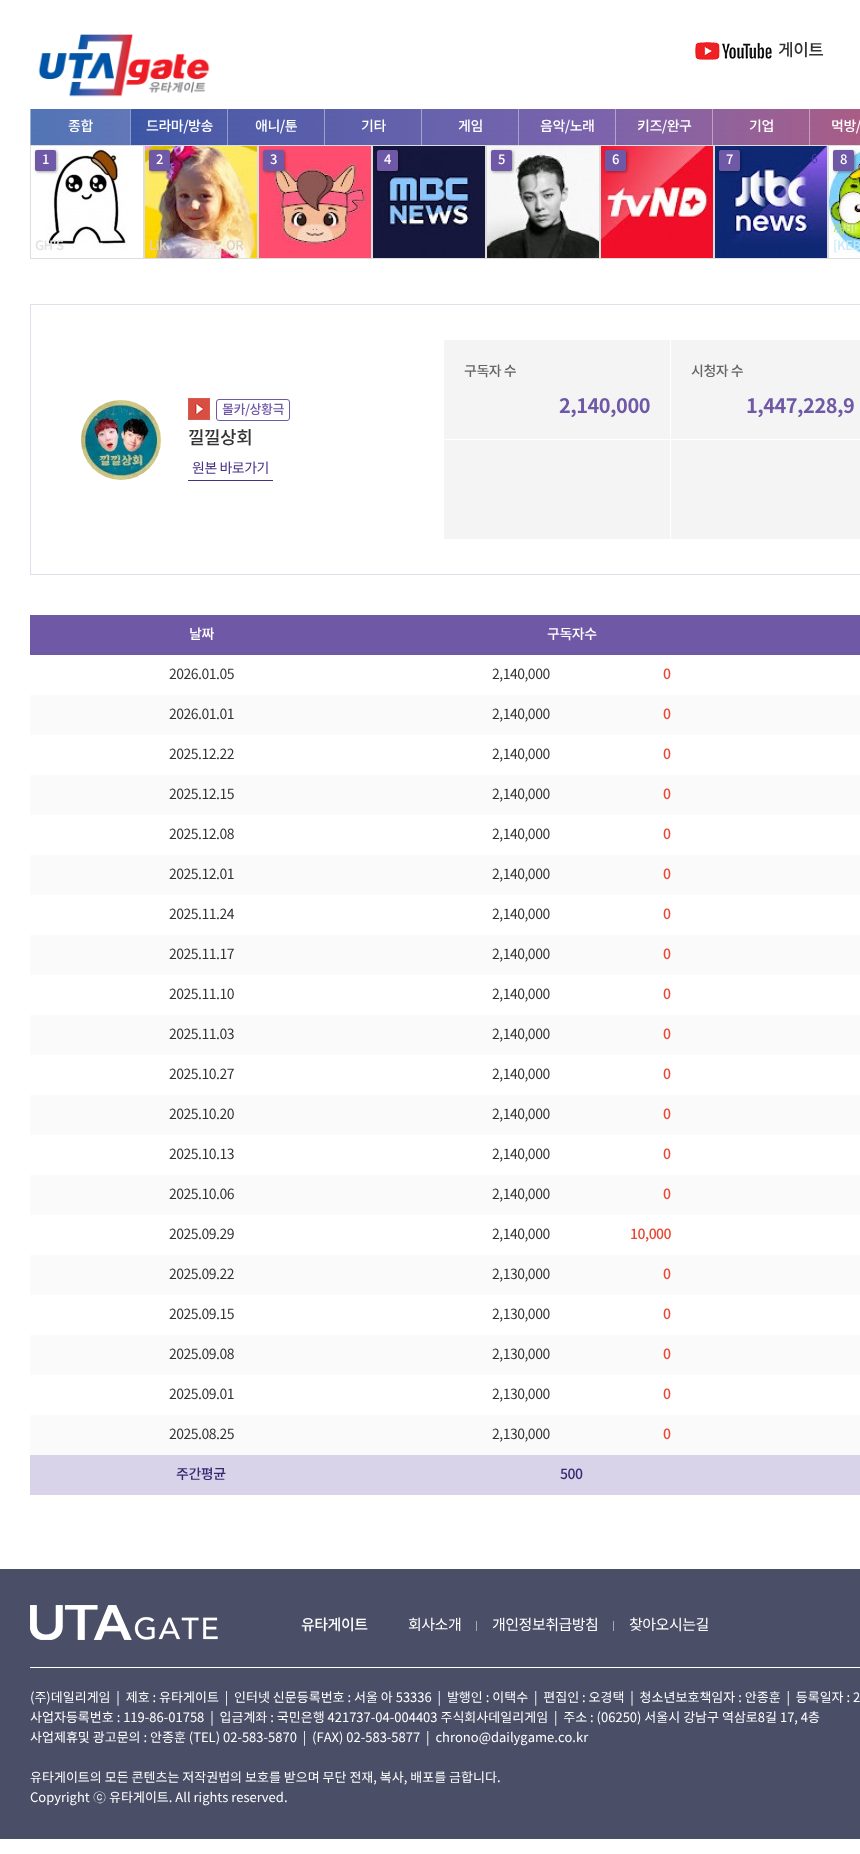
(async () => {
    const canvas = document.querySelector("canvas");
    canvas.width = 860;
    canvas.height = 1854;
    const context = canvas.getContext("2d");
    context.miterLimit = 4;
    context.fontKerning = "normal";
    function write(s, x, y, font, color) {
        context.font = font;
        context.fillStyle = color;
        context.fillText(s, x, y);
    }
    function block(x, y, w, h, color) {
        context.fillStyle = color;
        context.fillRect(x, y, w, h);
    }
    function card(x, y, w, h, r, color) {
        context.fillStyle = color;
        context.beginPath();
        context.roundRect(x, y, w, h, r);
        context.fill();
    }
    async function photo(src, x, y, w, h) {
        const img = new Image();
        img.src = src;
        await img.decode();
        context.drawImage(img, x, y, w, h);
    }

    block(0, 0, 860, 1854, "rgb(255, 255, 255)");
    await photo("media/1.png", 38, 34, 172, 63);
    await photo("media/2.png", 695, 42, 77, 18);
    context.letterSpacing = "-0.5px";
    write("게이트", 778, 56, "500 17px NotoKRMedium", "rgb(51, 51, 51)");
    await photo("media/3.png", 31, 109, 829, 36);
    block(31, 109, 99, 36, "rgba(255, 255, 255, 0.2)");
    block(30, 109, 1, 36, "rgb(154, 175, 212)");
    write("종합", 68, 131, "500 14px NotoKRMedium", "rgb(255, 255, 255)");
    block(130, 109, 1, 36, "rgb(138, 154, 202)");
    write("드라마/방송", 146, 131, "500 14px NotoKRMedium", "rgb(255, 255, 255)");
    block(227, 109, 1, 36, "rgb(150, 157, 203)");
    write("애니/툰", 255, 131, "500 14px NotoKRMedium", "rgb(255, 255, 255)");
    block(324, 109, 1, 36, "rgb(157, 159, 204)");
    write("기타", 361, 131, "500 14px NotoKRMedium", "rgb(255, 255, 255)");
    block(421, 109, 1, 36, "rgb(164, 161, 204)");
    write("게임", 458, 131, "500 14px NotoKRMedium", "rgb(255, 255, 255)");
    block(518, 109, 1, 36, "rgb(170, 161, 205)");
    write("음악/노래", 540, 131, "500 14px NotoKRMedium", "rgb(255, 255, 255)");
    block(615, 109, 1, 36, "rgb(178, 162, 204)");
    write("키즈/완구", 637, 131, "500 14px NotoKRMedium", "rgb(255, 255, 255)");
    block(712, 109, 1, 36, "rgb(188, 161, 197)");
    write("기업", 749, 131, "500 14px NotoKRMedium", "rgb(255, 255, 255)");
    block(809, 109, 1, 36, "rgb(198, 159, 187)");
    write("먹방/", 831, 131, "500 14px NotoKRMedium", "rgb(255, 255, 255)");
    context.strokeStyle = "rgb(221, 221, 221)";
    context.strokeRect(30.5, 145.5, 113, 113);
    await photo("media/4.png", 47, 146, 80, 103);
    context.fillStyle = "rgba(0, 0, 0, 0.38)";
    context.filter = "blur(1.5px)";
    context.beginPath();
    context.roundRect(36, 151, 21, 21, 2);
    context.fill();
    context.filter = "none";
    card(35, 150, 21, 21, 2, "rgb(111, 89, 166)");
    write("1", 42, 164, "500 13px NotoKRMedium", "rgb(255, 255, 255)");
    write("GH'S", 35, 250, "500 13px NotoKRMedium", "rgb(225, 225, 225)");
    context.strokeRect(144.5, 145.5, 113, 113);
    await photo("media/5.png", 145, 146, 112, 112);
    context.fillStyle = "rgba(0, 0, 0, 0.38)";
    context.filter = "blur(1.5px)";
    context.beginPath();
    context.roundRect(150, 151, 21, 21, 2);
    context.fill();
    context.filter = "none";
    card(149, 150, 21, 21, 2, "rgb(111, 89, 166)");
    write("2", 156, 164, "500 13px NotoKRMedium", "rgb(255, 255, 255)");
    write("Lik", 149, 250, "500 13px NotoKRMedium", "rgb(222, 210, 188)");
    write("OR", 226, 250, "500 13px NotoKRMedium", "rgb(222, 210, 188)");
    context.strokeRect(258.5, 145.5, 113, 113);
    await photo("media/6.png", 259, 146, 112, 112);
    context.fillStyle = "rgba(0, 0, 0, 0.38)";
    context.filter = "blur(1.5px)";
    context.beginPath();
    context.roundRect(264, 151, 21, 21, 2);
    context.fill();
    context.filter = "none";
    card(263, 150, 21, 21, 2, "rgb(111, 89, 166)");
    write("3", 270, 164, "500 13px NotoKRMedium", "rgb(255, 255, 255)");
    context.strokeRect(372.5, 145.5, 113, 113);
    await photo("media/7.png", 373, 146, 112, 112);
    context.fillStyle = "rgba(0, 0, 0, 0.38)";
    context.filter = "blur(1.5px)";
    context.beginPath();
    context.roundRect(378, 151, 21, 21, 2);
    context.fill();
    context.filter = "none";
    card(377, 150, 21, 21, 2, "rgb(111, 89, 166)");
    write("4", 384, 164, "500 13px NotoKRMedium", "rgb(255, 255, 255)");
    context.strokeRect(486.5, 145.5, 113, 113);
    await photo("media/8.png", 487, 146, 112, 112);
    context.fillStyle = "rgba(0, 0, 0, 0.38)";
    context.filter = "blur(1.5px)";
    context.beginPath();
    context.roundRect(492, 151, 21, 21, 2);
    context.fill();
    context.filter = "none";
    card(491, 150, 21, 21, 2, "rgb(111, 89, 166)");
    write("5", 498, 164, "500 13px NotoKRMedium", "rgb(255, 255, 255)");
    context.strokeRect(600.5, 145.5, 113, 113);
    await photo("media/9.png", 601, 146, 112, 112);
    context.fillStyle = "rgba(0, 0, 0, 0.38)";
    context.filter = "blur(1.5px)";
    context.beginPath();
    context.roundRect(606, 151, 21, 21, 2);
    context.fill();
    context.filter = "none";
    card(605, 150, 21, 21, 2, "rgb(111, 89, 166)");
    write("6", 612, 164, "500 13px NotoKRMedium", "rgb(255, 255, 255)");
    context.strokeRect(714.5, 145.5, 113, 113);
    await photo("media/10.png", 715, 146, 112, 112);
    context.fillStyle = "rgba(0, 0, 0, 0.38)";
    context.filter = "blur(1.5px)";
    context.beginPath();
    context.roundRect(720, 151, 21, 21, 2);
    context.fill();
    context.filter = "none";
    card(719, 150, 21, 21, 2, "rgb(111, 89, 166)");
    write("7", 726, 164, "500 13px NotoKRMedium", "rgb(255, 255, 255)");
    write("6", 811, 163, "12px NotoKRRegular", "rgb(69, 61, 167)");
    context.strokeRect(828.5, 145.5, 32, 113);
    await photo("media/11.png", 829, 146, 31, 112);
    context.fillStyle = "rgba(0, 0, 0, 0.38)";
    context.filter = "blur(1.5px)";
    context.beginPath();
    context.roundRect(834, 151, 21, 21, 2);
    context.fill();
    context.filter = "none";
    card(833, 150, 21, 21, 2, "rgb(111, 89, 166)");
    write("8", 840, 164, "500 13px NotoKRMedium", "rgb(255, 255, 255)");
    write("깨비", 833, 234, "500 13px NotoKRMedium", "rgb(177, 220, 127)");
    write("[KEB", 833, 250, "500 13px NotoKRMedium", "rgb(200, 234, 251)");
    context.strokeStyle = "rgb(221, 226, 234)";
    context.strokeRect(30.5, 304.5, 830, 270);
    block(444, 340, 226, 99, "rgb(244, 244, 244)");
    write("구독자 수", 464, 376, "500 14px NotoKRMedium", "rgb(101, 102, 102)");
    write("2,140,000", 559, 413, "bold 20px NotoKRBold", "rgb(111, 89, 166)");
    block(671, 340, 189, 99, "rgb(244, 244, 244)");
    write("시청자 수", 691, 376, "500 14px NotoKRMedium", "rgb(101, 102, 102)");
    write("1,447,228,9", 746, 413, "bold 20px NotoKRBold", "rgb(111, 89, 166)");
    block(444, 440, 226, 99, "rgb(244, 244, 244)");
    block(671, 440, 189, 99, "rgb(244, 244, 244)");
    await photo("media/12.png", 81, 400, 80, 80);
    await photo("media/13.png", 188, 398, 22, 22);
    context.beginPath();
    context.roundRect(216.5, 399.5, 73, 21, 2.5);
    context.strokeStyle = "rgb(111, 89, 166)";
    context.stroke();
    write("몰카/상황극", 222, 414, "500 13px NotoKRMedium", "rgb(111, 89, 166)");
    write("낄낄상회", 188, 444, "500 18px NotoKRMedium", "rgb(51, 51, 51)");
    block(188, 480, 85, 1, "rgb(72, 49, 133)");
    write("원본 바로가기", 192, 473, "14px NotoKRRegular", "rgb(72, 49, 133)");
    block(30, 615, 830, 40, "rgb(111, 89, 166)");
    write("날짜", 189, 639, "500 14px NotoKRMedium", "rgb(255, 255, 255)");
    write("구독자수", 547, 639, "500 14px NotoKRMedium", "rgb(255, 255, 255)");
    write("2026.01.05", 169, 679, "14px NotoKRRegular", "rgb(51, 51, 51)");
    write("2,140,000", 492, 679, "14px NotoKRRegular", "rgb(51, 51, 51)");
    write("0", 663, 679, "500 14px NotoKRMedium", "rgb(232, 72, 51)");
    block(30, 695, 830, 40, "rgb(250, 250, 250)");
    write("2026.01.01", 169, 719, "14px NotoKRRegular", "rgb(51, 51, 51)");
    write("2,140,000", 492, 719, "14px NotoKRRegular", "rgb(51, 51, 51)");
    write("0", 663, 719, "500 14px NotoKRMedium", "rgb(232, 72, 51)");
    write("2025.12.22", 169, 759, "14px NotoKRRegular", "rgb(51, 51, 51)");
    write("2,140,000", 492, 759, "14px NotoKRRegular", "rgb(51, 51, 51)");
    write("0", 663, 759, "500 14px NotoKRMedium", "rgb(232, 72, 51)");
    block(30, 775, 830, 40, "rgb(250, 250, 250)");
    write("2025.12.15", 169, 799, "14px NotoKRRegular", "rgb(51, 51, 51)");
    write("2,140,000", 492, 799, "14px NotoKRRegular", "rgb(51, 51, 51)");
    write("0", 663, 799, "500 14px NotoKRMedium", "rgb(232, 72, 51)");
    write("2025.12.08", 169, 839, "14px NotoKRRegular", "rgb(51, 51, 51)");
    write("2,140,000", 492, 839, "14px NotoKRRegular", "rgb(51, 51, 51)");
    write("0", 663, 839, "500 14px NotoKRMedium", "rgb(232, 72, 51)");
    block(30, 855, 830, 40, "rgb(250, 250, 250)");
    write("2025.12.01", 169, 879, "14px NotoKRRegular", "rgb(51, 51, 51)");
    write("2,140,000", 492, 879, "14px NotoKRRegular", "rgb(51, 51, 51)");
    write("0", 663, 879, "500 14px NotoKRMedium", "rgb(232, 72, 51)");
    write("2025.11.24", 169, 919, "14px NotoKRRegular", "rgb(51, 51, 51)");
    write("2,140,000", 492, 919, "14px NotoKRRegular", "rgb(51, 51, 51)");
    write("0", 663, 919, "500 14px NotoKRMedium", "rgb(232, 72, 51)");
    block(30, 935, 830, 40, "rgb(250, 250, 250)");
    write("2025.11.17", 169, 959, "14px NotoKRRegular", "rgb(51, 51, 51)");
    write("2,140,000", 492, 959, "14px NotoKRRegular", "rgb(51, 51, 51)");
    write("0", 663, 959, "500 14px NotoKRMedium", "rgb(232, 72, 51)");
    write("2025.11.10", 169, 999, "14px NotoKRRegular", "rgb(51, 51, 51)");
    write("2,140,000", 492, 999, "14px NotoKRRegular", "rgb(51, 51, 51)");
    write("0", 663, 999, "500 14px NotoKRMedium", "rgb(232, 72, 51)");
    block(30, 1015, 830, 40, "rgb(250, 250, 250)");
    write("2025.11.03", 169, 1039, "14px NotoKRRegular", "rgb(51, 51, 51)");
    write("2,140,000", 492, 1039, "14px NotoKRRegular", "rgb(51, 51, 51)");
    write("0", 663, 1039, "500 14px NotoKRMedium", "rgb(232, 72, 51)");
    write("2025.10.27", 169, 1079, "14px NotoKRRegular", "rgb(51, 51, 51)");
    write("2,140,000", 492, 1079, "14px NotoKRRegular", "rgb(51, 51, 51)");
    write("0", 663, 1079, "500 14px NotoKRMedium", "rgb(232, 72, 51)");
    block(30, 1095, 830, 40, "rgb(250, 250, 250)");
    write("2025.10.20", 169, 1119, "14px NotoKRRegular", "rgb(51, 51, 51)");
    write("2,140,000", 492, 1119, "14px NotoKRRegular", "rgb(51, 51, 51)");
    write("0", 663, 1119, "500 14px NotoKRMedium", "rgb(232, 72, 51)");
    write("2025.10.13", 169, 1159, "14px NotoKRRegular", "rgb(51, 51, 51)");
    write("2,140,000", 492, 1159, "14px NotoKRRegular", "rgb(51, 51, 51)");
    write("0", 663, 1159, "500 14px NotoKRMedium", "rgb(232, 72, 51)");
    block(30, 1175, 830, 40, "rgb(250, 250, 250)");
    write("2025.10.06", 169, 1199, "14px NotoKRRegular", "rgb(51, 51, 51)");
    write("2,140,000", 492, 1199, "14px NotoKRRegular", "rgb(51, 51, 51)");
    write("0", 663, 1199, "500 14px NotoKRMedium", "rgb(232, 72, 51)");
    write("2025.09.29", 169, 1239, "14px NotoKRRegular", "rgb(51, 51, 51)");
    write("2,140,000", 492, 1239, "14px NotoKRRegular", "rgb(51, 51, 51)");
    write("10,000", 630, 1239, "500 14px NotoKRMedium", "rgb(232, 72, 51)");
    block(30, 1255, 830, 40, "rgb(250, 250, 250)");
    write("2025.09.22", 169, 1279, "14px NotoKRRegular", "rgb(51, 51, 51)");
    write("2,130,000", 492, 1279, "14px NotoKRRegular", "rgb(51, 51, 51)");
    write("0", 663, 1279, "500 14px NotoKRMedium", "rgb(232, 72, 51)");
    write("2025.09.15", 169, 1319, "14px NotoKRRegular", "rgb(51, 51, 51)");
    write("2,130,000", 492, 1319, "14px NotoKRRegular", "rgb(51, 51, 51)");
    write("0", 663, 1319, "500 14px NotoKRMedium", "rgb(232, 72, 51)");
    block(30, 1335, 830, 40, "rgb(250, 250, 250)");
    write("2025.09.08", 169, 1359, "14px NotoKRRegular", "rgb(51, 51, 51)");
    write("2,130,000", 492, 1359, "14px NotoKRRegular", "rgb(51, 51, 51)");
    write("0", 663, 1359, "500 14px NotoKRMedium", "rgb(232, 72, 51)");
    write("2025.09.01", 169, 1399, "14px NotoKRRegular", "rgb(51, 51, 51)");
    write("2,130,000", 492, 1399, "14px NotoKRRegular", "rgb(51, 51, 51)");
    write("0", 663, 1399, "500 14px NotoKRMedium", "rgb(232, 72, 51)");
    block(30, 1415, 830, 40, "rgb(250, 250, 250)");
    write("2025.08.25", 169, 1439, "14px NotoKRRegular", "rgb(51, 51, 51)");
    write("2,130,000", 492, 1439, "14px NotoKRRegular", "rgb(51, 51, 51)");
    write("0", 663, 1439, "500 14px NotoKRMedium", "rgb(232, 72, 51)");
    block(30, 1455, 830, 40, "rgb(216, 211, 233)");
    write("주간평균", 176, 1479, "500 14px NotoKRMedium", "rgb(53, 42, 114)");
    write("500", 560, 1479, "500 14px NotoKRMedium", "rgb(53, 42, 114)");
    block(0, 1569, 860, 270, "rgb(74, 78, 103)");
    await photo("media/14.png", 30, 1605, 188, 35);
    write("유타게이트", 301, 1630, "500 15px NotoKRMedium", "rgb(255, 255, 255)");
    write("회사소개", 408, 1630, "15px NotoKRRegular", "rgb(255, 255, 255)");
    block(476, 1621, 1, 10, "rgb(165, 167, 179)");
    write("개인정보취급방침", 492, 1630, "15px NotoKRRegular", "rgb(255, 255, 255)");
    block(613, 1621, 1, 10, "rgb(165, 167, 179)");
    write("찾아오시는길", 629, 1630, "15px NotoKRRegular", "rgb(255, 255, 255)");
    block(30, 1667, 830, 1, "rgb(255, 255, 255)");
    context.letterSpacing = "0px";
    write("(주)데일리게임  |  제호 : 유타게이트  |  인터넷 신문등록번호 : 서울 아 53336  |  발행인 : 이택수  |  편집인 : 오경택  |  청소년보호책임자 : 안종훈  |  등록일자 : 2", 30, 1702, "13px NotoKRRegular", "rgb(255, 255, 255)");
    write("사업자등록번호 : 119-86-01758  |  입금계좌 : 국민은행 421737-04-004403 주식회사데일리게임  |  주소 : (06250) 서울시 강남구 역삼로8길 17, 4층", 30, 1722, "13px NotoKRRegular", "rgb(255, 255, 255)");
    write("사업제휴및 광고문의 : 안종훈 (TEL) 02-583-5870  |  (FAX) 02-583-5877  |  chrono@dailygame.co.kr", 30, 1742, "13px NotoKRRegular", "rgb(255, 255, 255)");
    write("유타게이트의 모든 콘텐츠는 저작권법의 보호를 받으며 무단 전재, 복사, 배포를 금합니다.", 30, 1782, "13px NotoKRRegular", "rgb(255, 255, 255)");
    write("Copyright", 30, 1802, "13px NotoKRRegular", "rgb(255, 255, 255)");
    write("ⓒ", 93, 1802, "13px Gulim", "rgb(255, 255, 255)");
    write("유타게이트. All rights reserved.", 109, 1802, "13px NotoKRRegular", "rgb(255, 255, 255)");
})();
